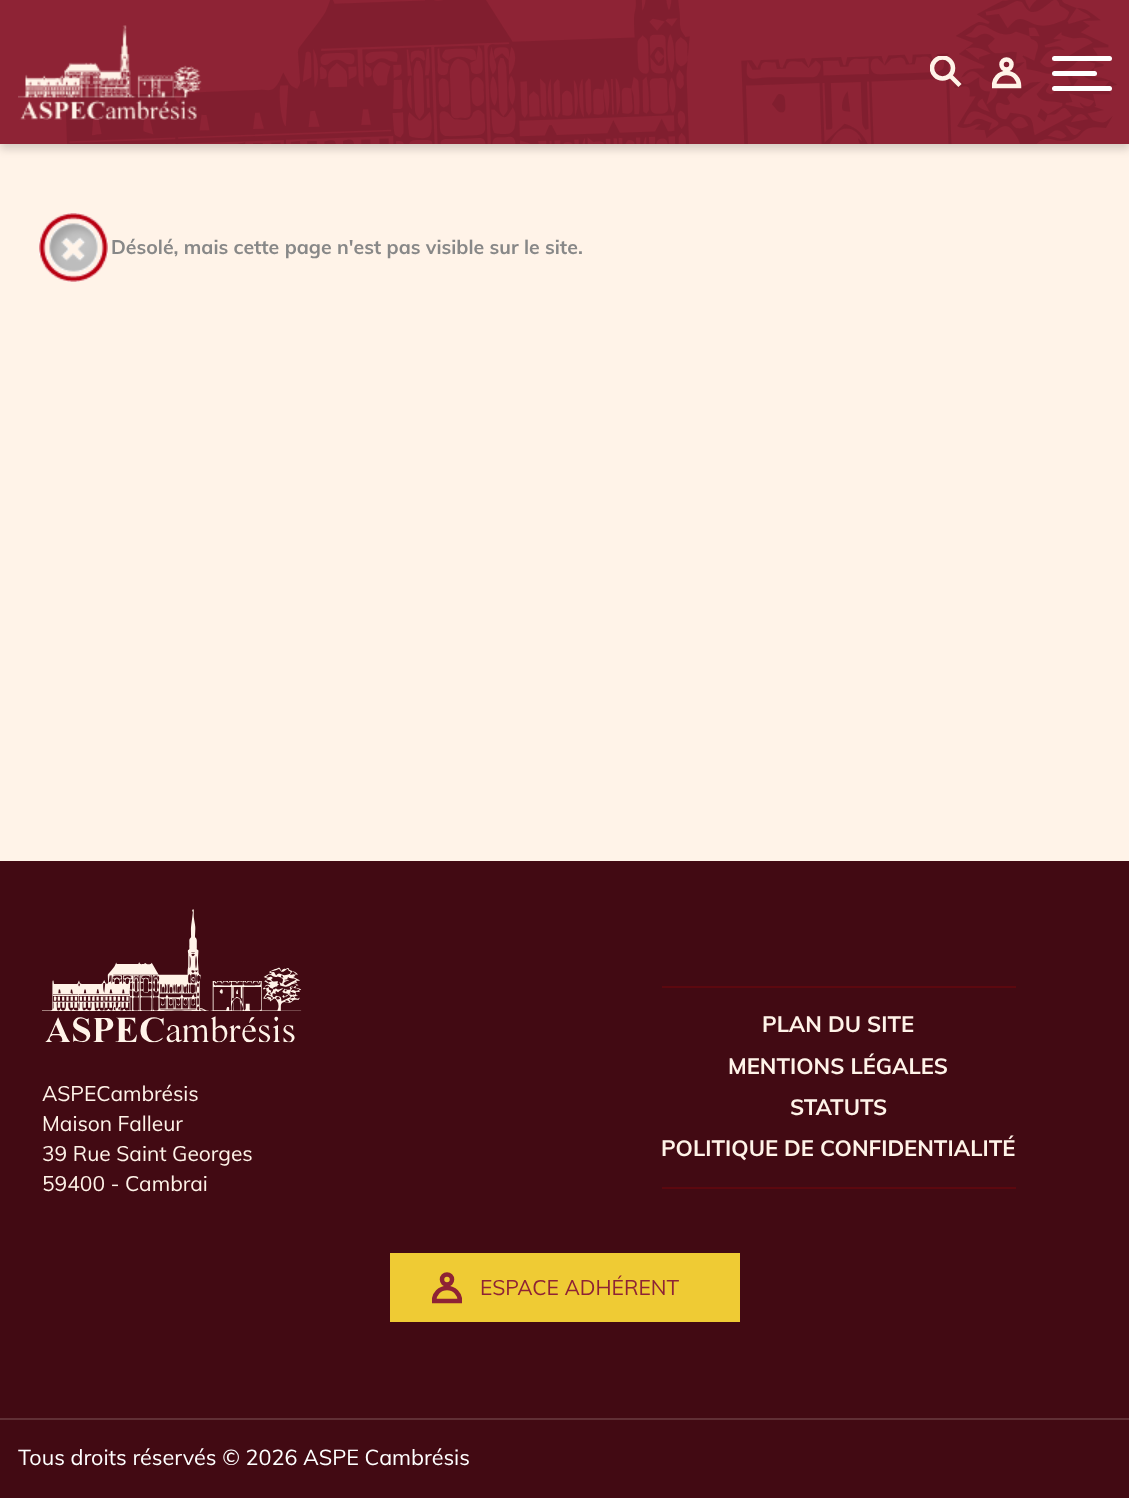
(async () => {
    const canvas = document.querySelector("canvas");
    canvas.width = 1129;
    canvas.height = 1498;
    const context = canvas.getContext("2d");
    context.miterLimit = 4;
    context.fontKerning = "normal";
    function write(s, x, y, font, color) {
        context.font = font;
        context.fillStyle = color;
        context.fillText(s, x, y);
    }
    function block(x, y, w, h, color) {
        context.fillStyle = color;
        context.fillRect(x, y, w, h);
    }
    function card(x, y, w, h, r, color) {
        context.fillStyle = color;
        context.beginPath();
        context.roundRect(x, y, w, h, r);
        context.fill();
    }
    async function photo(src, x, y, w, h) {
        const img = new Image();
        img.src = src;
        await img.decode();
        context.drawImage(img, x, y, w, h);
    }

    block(0, 0, 1129, 1498, "rgb(255, 243, 232)");
    context.fillStyle = "rgba(0, 0, 0, 0.16)";
    context.filter = "blur(4.5px)";
    context.beginPath();
    context.rect(0, 5, 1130, 144);
    context.fill();
    context.filter = "none";
    block(0, 0, 1129, 144, "rgb(142, 35, 53)");
    await photo("media/1.png", 65, 0, 1052, 144);
    await photo("media/2.png", 18, 25, 184, 95);
    context.save();
    context.beginPath();
    context.rect(930, 56, 32, 33);
    context.clip();
    context.beginPath();
    context.arc(942.5, 68, 10.5, 0, Math.PI * 2);
    context.strokeStyle = "rgb(255, 243, 232)";
    context.lineWidth = 4.5;
    context.stroke();
    context.restore();
    context.beginPath();
    context.moveTo(950, 75.5);
    context.lineTo(960, 85.5);
    context.strokeStyle = "rgb(255, 243, 232)";
    context.lineWidth = 4.5;
    context.stroke();
    context.save();
    context.beginPath();
    context.rect(992, 57, 30, 32);
    context.clip();
    context.beginPath();
    context.moveTo(1006.5, 73);
    context.bezierCurveTo(1014, 73, 1019, 79, 1019, 86);
    context.lineTo(994, 86);
    context.bezierCurveTo(994, 79, 999, 73, 1006.5, 73);
    context.closePath();
    context.stroke();
    context.restore();
    context.beginPath();
    context.arc(1006.5, 64.5, 5, 0, Math.PI * 2);
    context.stroke();
    card(1052, 56, 60, 5, 2.5, "rgb(255, 255, 255)");
    card(1052, 71, 45, 5, 2.5, "rgb(255, 255, 255)");
    card(1052, 86, 60, 5, 2.5, "rgb(255, 255, 255)");
    await photo("media/3.png", 39, 213, 69, 69);
    write("Désolé, mais cette page n'est pas visible sur le site.", 111, 254, "bold 19.5px Muli", "rgb(136, 136, 136)");
    block(0, 861, 1129, 637, "rgb(66, 10, 19)");
    await photo("media/4.png", 42, 909, 260, 134);
    write("ASPECambrésis", 42, 1101, "21px Muli", "rgb(255, 243, 232)");
    write("Maison Falleur", 42, 1131, "21px Muli", "rgb(255, 243, 232)");
    write("39 Rue Saint Georges", 42, 1161, "21px Muli", "rgb(255, 243, 232)");
    write("59400 - Cambrai", 42, 1191, "21px Muli", "rgb(255, 243, 232)");
    block(662, 986, 354, 2, "rgb(92, 8, 15)");
    write("PLAN DU SITE", 762, 1032, "bold 22px Muli", "rgb(255, 243, 232)");
    write("MENTIONS LÉGALES", 728, 1074, "bold 22px Muli", "rgb(255, 243, 232)");
    write("STATUTS", 790, 1115, "bold 22px Muli", "rgb(255, 243, 232)");
    write("POLITIQUE DE CONFIDENTIALITÉ", 661, 1156, "bold 22px Muli", "rgb(255, 243, 232)");
    block(662, 1187, 354, 2, "rgb(92, 8, 15)");
    block(390, 1253, 350, 69, "rgb(239, 203, 52)");
    context.save();
    context.beginPath();
    context.rect(432, 1272, 30, 32);
    context.clip();
    context.beginPath();
    context.moveTo(447, 1288);
    context.bezierCurveTo(454.5, 1288, 460, 1294, 460, 1301);
    context.lineTo(434, 1301);
    context.bezierCurveTo(434, 1294, 439.5, 1288, 447, 1288);
    context.closePath();
    context.strokeStyle = "rgb(142, 35, 53)";
    context.stroke();
    context.restore();
    context.beginPath();
    context.arc(447, 1279.5, 5, 0, Math.PI * 2);
    context.strokeStyle = "rgb(142, 35, 53)";
    context.stroke();
    write("ESPACE ADHÉRENT", 480, 1295, "21px Muli", "rgb(142, 35, 53)");
    block(0, 1418, 1129, 2, "rgb(96, 47, 53)");
    write("Tous droits réservés © 2026 ASPE Cambrésis", 18, 1465, "21.6px Muli", "rgb(255, 255, 255)");
})();
